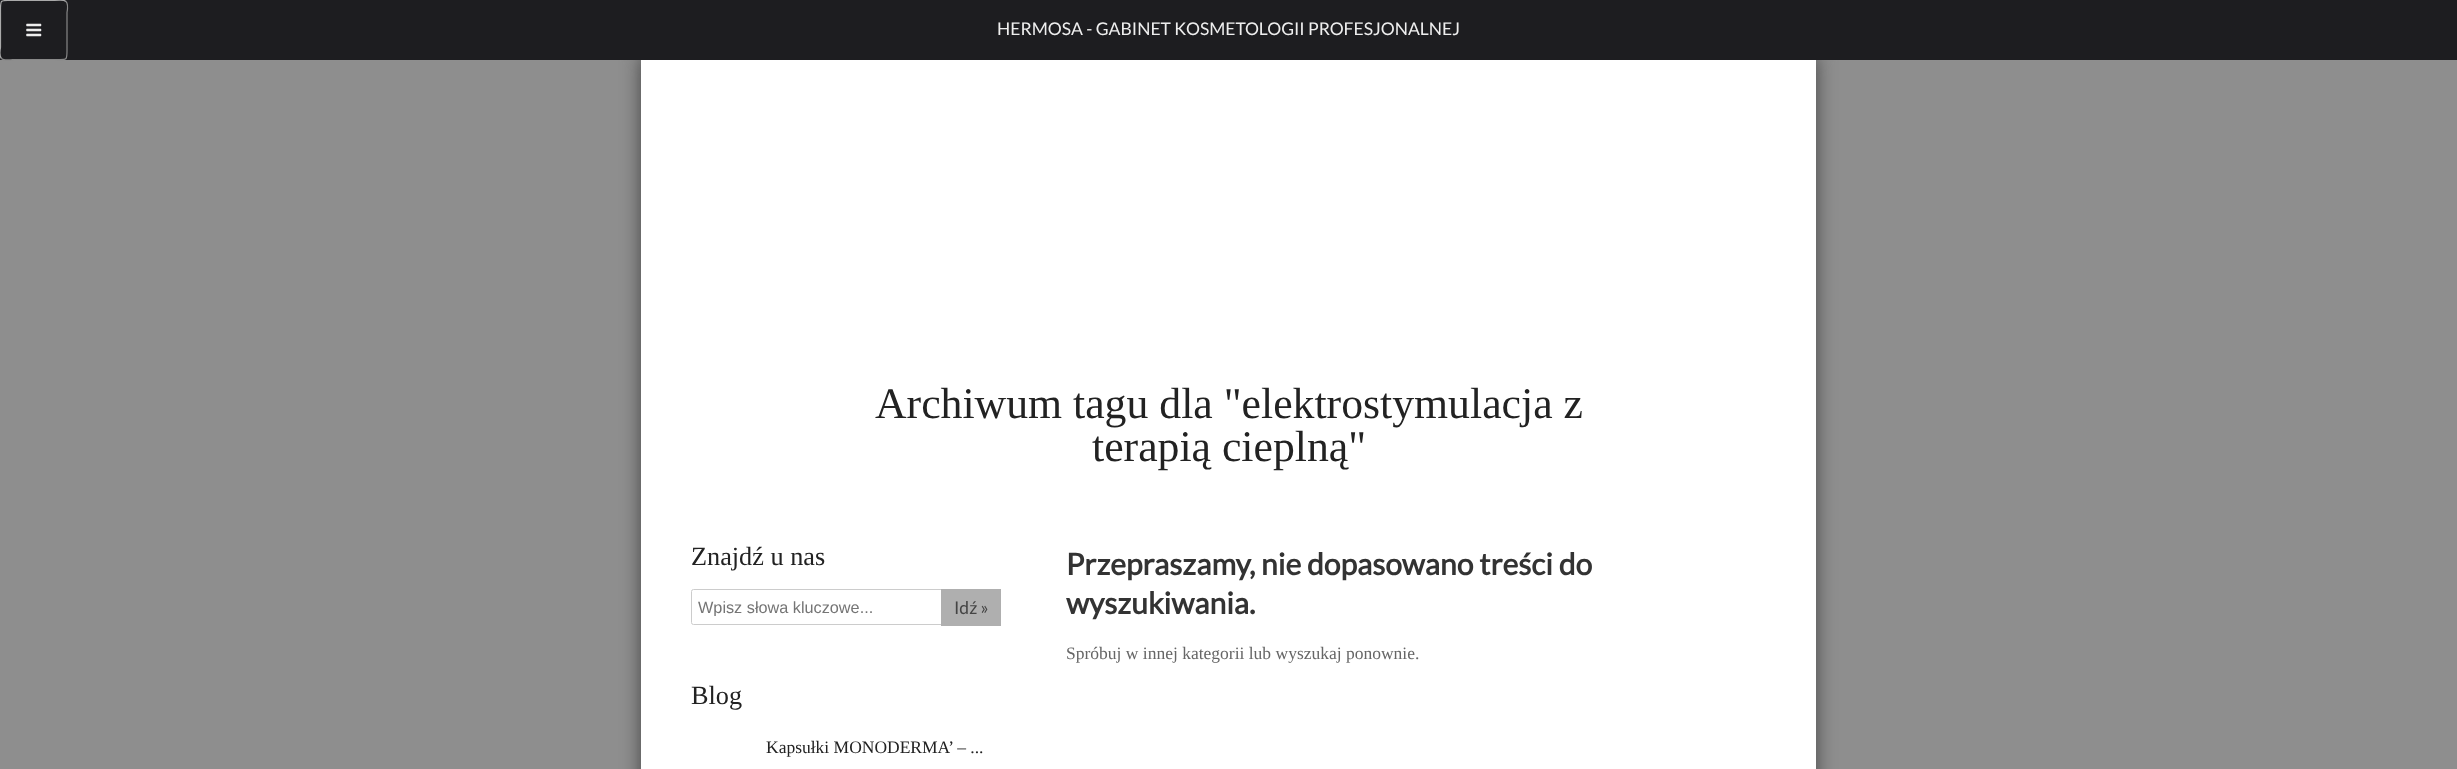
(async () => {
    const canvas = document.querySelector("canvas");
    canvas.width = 2457;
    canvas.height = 769;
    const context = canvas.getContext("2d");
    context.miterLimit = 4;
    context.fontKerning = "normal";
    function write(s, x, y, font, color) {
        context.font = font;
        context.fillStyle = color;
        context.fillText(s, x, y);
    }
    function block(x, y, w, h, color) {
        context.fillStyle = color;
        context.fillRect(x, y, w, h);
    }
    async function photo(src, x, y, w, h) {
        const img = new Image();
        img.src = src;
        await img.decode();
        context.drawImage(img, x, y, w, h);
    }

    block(0, 0, 2457, 769, "rgb(142, 142, 142)");
    context.fillStyle = "rgb(68, 68, 68)";
    context.filter = "blur(9.5px)";
    context.beginPath();
    context.rect(641, 56, 1175, 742);
    context.fill();
    context.filter = "none";
    block(0, 0, 2457, 60, "rgb(29, 29, 32)");
    context.beginPath();
    context.moveTo(66, 1.5);
    context.bezierCurveTo(68.5, 4, 67, 12.5, 67, 12.5);
    context.lineTo(67, 47.5);
    context.bezierCurveTo(67, 61.5, 68, 59.5, 54, 59.5);
    context.lineTo(14, 59.5);
    context.bezierCurveTo(13, 59.5, 4, 61, 1.5, 58.5);
    context.strokeStyle = "rgb(136, 136, 136)";
    context.lineWidth = 1.2;
    context.stroke();
    context.beginPath();
    context.moveTo(1.5, 58.5);
    context.bezierCurveTo(-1, 56, 0.5, 47.5, 0.5, 47.5);
    context.lineTo(0.5, 12.5);
    context.bezierCurveTo(0.5, -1.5, -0.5, 0.5, 14, 0.5);
    context.lineTo(54, 0.5);
    context.bezierCurveTo(54.5, 0.5, 63.5, -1, 66, 1.5);
    context.strokeStyle = "rgb(170, 170, 170)";
    context.stroke();
    await photo("media/1.png", 26, 23, 16, 14);
    write("HERMOSA - GABINET KOSMETOLOGII PROFESJONALNEJ", 997, 35, "17.5px Lato", "rgb(238, 238, 238)");
    block(641, 60, 1175, 709, "rgb(255, 255, 255)");
    write("Archiwum tagu dla \"elektrostymulacja z", 875, 418, "43.75px Liberation Serif", "rgb(34, 34, 34)");
    write("terapią cieplną\"", 1092, 461, "43.75px Liberation Serif", "rgb(34, 34, 34)");
    write("Znajdź u nas", 691, 565, "26.25px Liberation Serif", "rgb(34, 34, 34)");
    context.beginPath();
    context.roundRect(691.5, 589.5, 262, 35, 2);
    context.strokeStyle = "rgb(204, 204, 204)";
    context.lineWidth = 1;
    context.stroke();
    context.save();
    context.beginPath();
    context.rect(698, 598, 250, 18);
    context.clip();
    write("Wpisz słowa kluczowe...", 698, 613, "16.25px Liberation Sans", "rgb(117, 117, 117)");
    context.restore();
    block(941, 589, 60, 37, "rgb(175, 175, 175)");
    write("Idź »", 954, 614, "17.5px Lato", "rgb(68, 68, 68)");
    write("Blog", 691, 704, "26.25px Liberation Serif", "rgb(34, 34, 34)");
    write("Kapsułki MONODERMA’ – ...", 766, 753, "17.5px Liberation Serif", "rgb(34, 34, 34)");
    write("Przepraszamy, nie dopasowano treści do", 1066, 575, "bold 30px Lato", "rgb(51, 51, 51)");
    write("wyszukiwania.", 1066, 614, "bold 30px Lato", "rgb(51, 51, 51)");
    write("Spróbuj w innej kategorii lub wyszukaj ponownie.", 1066, 659, "17.5px Liberation Serif", "rgb(102, 102, 102)");
})();
